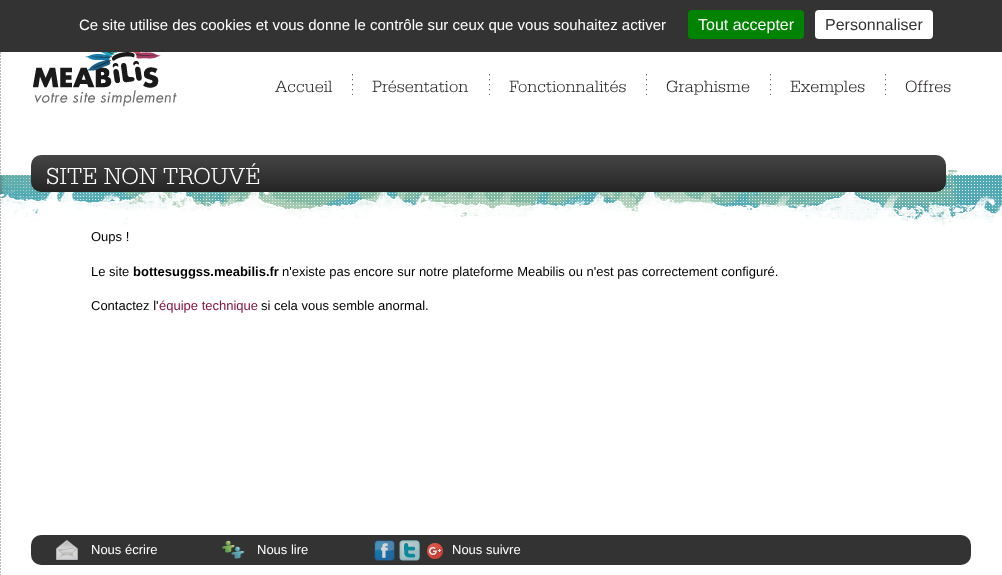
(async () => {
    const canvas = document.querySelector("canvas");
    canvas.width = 1002;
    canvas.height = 575;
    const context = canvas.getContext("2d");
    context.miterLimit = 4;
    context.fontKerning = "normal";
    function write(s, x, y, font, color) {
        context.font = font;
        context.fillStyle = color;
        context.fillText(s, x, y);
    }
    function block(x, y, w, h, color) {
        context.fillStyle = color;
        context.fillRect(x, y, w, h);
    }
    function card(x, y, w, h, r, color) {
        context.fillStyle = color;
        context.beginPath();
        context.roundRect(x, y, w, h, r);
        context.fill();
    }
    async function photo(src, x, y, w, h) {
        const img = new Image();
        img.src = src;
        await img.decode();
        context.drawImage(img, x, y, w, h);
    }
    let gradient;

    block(0, 0, 1002, 575, "rgb(255, 255, 255)");
    await photo("media/1.png", 0, 170, 1002, 56);
    block(0, 0, 1002, 52, "rgb(51, 51, 51)");
    write("Ce site utilise des cookies et vous donne le contrôle sur ceux que vous souhaitez activer", 79, 30, "15px Liberation Sans", "rgb(255, 255, 255)");
    card(688, 10, 116, 29, 4, "rgb(0, 131, 0)");
    write("Tout accepter", 698, 30, "16px Liberation Sans", "rgb(255, 255, 255)");
    card(815, 10, 118, 29, 4, "rgb(255, 255, 255)");
    write("Personnaliser", 825, 30, "16px Liberation Sans", "rgb(51, 51, 51)");
    await photo("media/2.png", 0, 52, 1, 523);
    await photo("media/3.png", 33, 52, 144, 55);
    write("Accueil", 275, 92, "17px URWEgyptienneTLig", "rgb(35, 30, 36)");
    await photo("media/4.png", 352, 74, 1, 21);
    write("Présentation", 372, 92, "17px URWEgyptienneTLig", "rgb(35, 30, 36)");
    await photo("media/4.png", 489, 74, 1, 21);
    write("Fonctionnalités", 509, 92, "17px URWEgyptienneTLig", "rgb(35, 30, 36)");
    await photo("media/4.png", 646, 74, 1, 21);
    write("Graphisme", 666, 92, "17px URWEgyptienneTLig", "rgb(35, 30, 36)");
    await photo("media/4.png", 770, 74, 1, 21);
    write("Exemples", 790, 92, "17px URWEgyptienneTLig", "rgb(35, 30, 36)");
    await photo("media/4.png", 885, 74, 1, 21);
    write("Offres", 905, 92, "17px URWEgyptienneTLig", "rgb(35, 30, 36)");
    gradient = context.createLinearGradient(31, 155, 31, 192);
    gradient.addColorStop(0, "rgb(70, 70, 70)");
    gradient.addColorStop(1, "rgb(36, 36, 36)");
    context.fillStyle = gradient;
    context.beginPath();
    context.roundRect(31, 155, 915, 37, 10);
    context.fill();
    write("SITE NON TROUVÉ", 46, 184, "24px URWEgyptienneTLig", "rgb(255, 255, 255)");
    write("Oups !", 91, 241, "13px Liberation Sans", "rgb(0, 0, 0)");
    write("Le site", 91, 276, "13px Liberation Sans", "rgb(0, 0, 0)");
    write("bottesuggss.meabilis.fr", 133, 276, "bold 13px Liberation Sans", "rgb(0, 0, 0)");
    write("n'existe pas encore sur notre plateforme Meabilis ou n'est pas correctement configuré.", 282, 276, "13px Liberation Sans", "rgb(0, 0, 0)");
    write("Contactez l'", 91, 310, "13px Liberation Sans", "rgb(0, 0, 0)");
    write("équipe technique", 159, 310, "13px Liberation Sans", "rgb(135, 19, 64)");
    write("si cela vous semble anormal.", 261, 310, "13px Liberation Sans", "rgb(0, 0, 0)");
    card(31, 535, 940, 30, 10, "rgb(51, 51, 51)");
    await photo("media/5.png", 56, 539, 22, 21);
    write("Nous écrire", 91, 554, "13px Liberation Sans", "rgb(255, 255, 255)");
    await photo("media/6.png", 222, 540, 23, 19);
    write("Nous lire", 257, 554, "13px Liberation Sans", "rgb(255, 255, 255)");
    await photo("media/7.png", 374, 540, 21, 21);
    await photo("media/8.png", 399, 540, 21, 21);
    await photo("media/9.png", 427, 543, 16, 16);
    write("Nous suivre", 452, 554, "13px Liberation Sans", "rgb(255, 255, 255)");
})();
